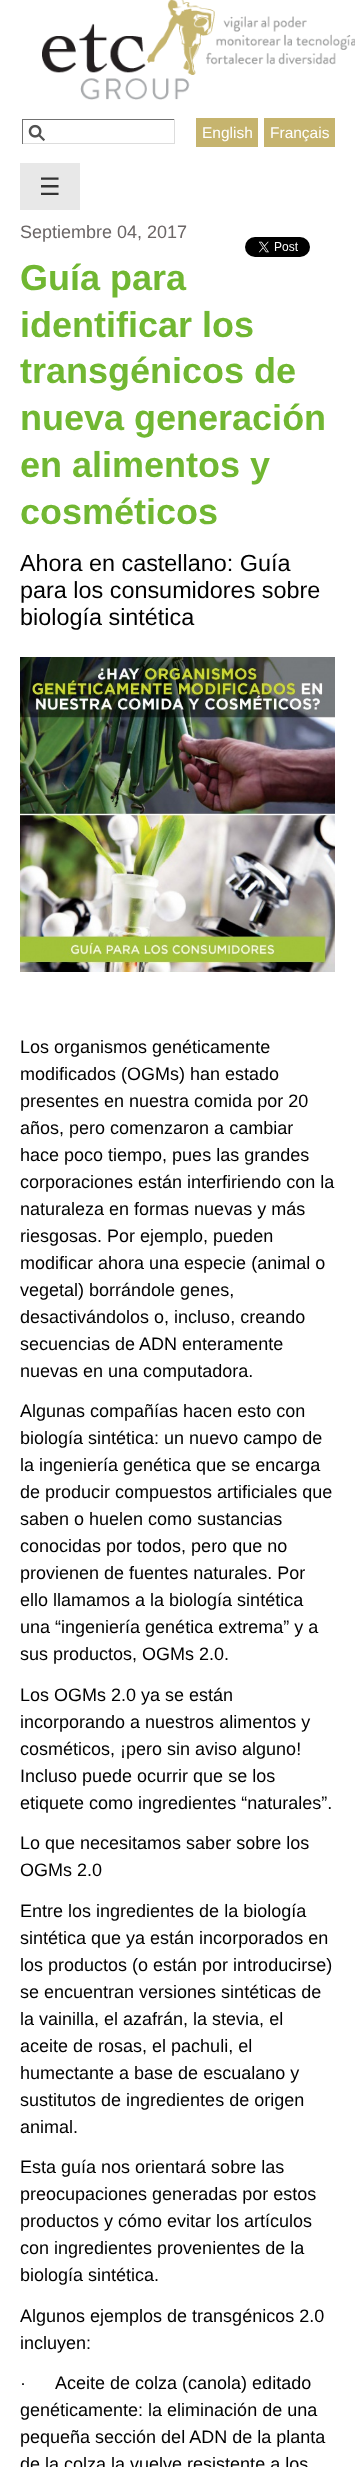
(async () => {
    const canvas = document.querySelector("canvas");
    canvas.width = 355;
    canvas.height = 2467;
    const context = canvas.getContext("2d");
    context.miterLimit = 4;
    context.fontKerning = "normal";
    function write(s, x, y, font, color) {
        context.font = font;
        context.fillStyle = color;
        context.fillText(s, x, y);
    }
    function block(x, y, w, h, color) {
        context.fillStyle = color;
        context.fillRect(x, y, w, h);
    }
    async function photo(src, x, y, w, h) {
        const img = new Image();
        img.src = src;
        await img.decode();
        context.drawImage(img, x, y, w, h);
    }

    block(0, 0, 355, 2467, "rgb(255, 255, 255)");
    await photo("media/1.png", 42, 0, 313, 100);
    await photo("media/2.png", 28, 124, 17, 18);
    block(22, 119, 153, 1, "rgb(113, 113, 113)");
    block(174, 119, 1, 25, "rgb(221, 221, 221)");
    block(22, 143, 153, 1, "rgb(221, 221, 221)");
    block(22, 119, 1, 25, "rgb(113, 113, 113)");
    block(196, 118, 62, 29, "rgb(198, 180, 110)");
    write("English", 202, 138, "15.5px Liberation Sans", "rgb(255, 255, 255)");
    block(264, 118, 71, 29, "rgb(198, 180, 110)");
    write("Français", 270, 138, "15.5px Liberation Sans", "rgb(255, 255, 255)");
    block(20, 163, 60, 47, "rgb(232, 232, 232)");
    write("☰", 39, 195, "24px DejaVu Sans", "rgb(51, 51, 51)");
    write("Septiembre 04, 2017", 20, 238, "18px Liberation Sans", "rgb(107, 102, 102)");
    await photo("media/3.png", 245, 237, 65, 20);
    write("Guía para", 20, 290, "bold 36px Liberation Sans", "rgb(113, 183, 50)");
    write("identificar los", 20, 337, "bold 36px Liberation Sans", "rgb(113, 183, 50)");
    write("transgénicos de", 20, 383, "bold 36px Liberation Sans", "rgb(113, 183, 50)");
    write("nueva generación", 20, 430, "bold 36px Liberation Sans", "rgb(113, 183, 50)");
    write("en alimentos y", 20, 477, "bold 36px Liberation Sans", "rgb(113, 183, 50)");
    write("cosméticos", 20, 524, "bold 36px Liberation Sans", "rgb(113, 183, 50)");
    write("Ahora en castellano: Guía", 20, 571, "23.4px Liberation Sans", "rgb(0, 0, 0)");
    write("para los consumidores sobre", 20, 598, "23.4px Liberation Sans", "rgb(0, 0, 0)");
    write("biología sintética", 20, 625, "23.4px Liberation Sans", "rgb(0, 0, 0)");
    await photo("media/4.png", 20, 657, 315, 315);
    write("Los organismos genéticamente", 20, 1053, "18px Liberation Sans", "rgb(0, 0, 0)");
    write("modificados (OGMs) han estado", 20, 1080, "18px Liberation Sans", "rgb(0, 0, 0)");
    write("presentes en nuestra comida por 20", 20, 1107, "18px Liberation Sans", "rgb(0, 0, 0)");
    write("años, pero comenzaron a cambiar", 20, 1134, "18px Liberation Sans", "rgb(0, 0, 0)");
    write("hace poco tiempo, pues las grandes", 20, 1161, "18px Liberation Sans", "rgb(0, 0, 0)");
    write("corporaciones están interfiriendo con la", 20, 1188, "18px Liberation Sans", "rgb(0, 0, 0)");
    write("naturaleza en formas nuevas y más", 20, 1215, "18px Liberation Sans", "rgb(0, 0, 0)");
    write("riesgosas. Por ejemplo, pueden", 20, 1242, "18px Liberation Sans", "rgb(0, 0, 0)");
    write("modificar ahora una especie (animal o", 20, 1269, "18px Liberation Sans", "rgb(0, 0, 0)");
    write("vegetal) borrándole genes,", 20, 1296, "18px Liberation Sans", "rgb(0, 0, 0)");
    write("desactivándolos o, incluso, creando", 20, 1323, "18px Liberation Sans", "rgb(0, 0, 0)");
    write("secuencias de ADN enteramente", 20, 1350, "18px Liberation Sans", "rgb(0, 0, 0)");
    write("nuevas en una computadora.", 20, 1377, "18px Liberation Sans", "rgb(0, 0, 0)");
    write("Algunas compañías hacen esto con", 20, 1417, "18px Liberation Sans", "rgb(0, 0, 0)");
    write("biología sintética: un nuevo campo de", 20, 1444, "18px Liberation Sans", "rgb(0, 0, 0)");
    write("la ingeniería genética que se encarga", 20, 1471, "18px Liberation Sans", "rgb(0, 0, 0)");
    write("de producir compuestos artificiales que", 20, 1498, "18px Liberation Sans", "rgb(0, 0, 0)");
    write("saben o huelen como sustancias", 20, 1525, "18px Liberation Sans", "rgb(0, 0, 0)");
    write("conocidas por todos, pero que no", 20, 1552, "18px Liberation Sans", "rgb(0, 0, 0)");
    write("provienen de fuentes naturales. Por", 20, 1579, "18px Liberation Sans", "rgb(0, 0, 0)");
    write("ello llamamos a la biología sintética", 20, 1606, "18px Liberation Sans", "rgb(0, 0, 0)");
    write("una “ingeniería genética extrema” y a", 20, 1633, "18px Liberation Sans", "rgb(0, 0, 0)");
    write("sus productos, OGMs 2.0.", 20, 1660, "18px Liberation Sans", "rgb(0, 0, 0)");
    write("Los OGMs 2.0 ya se están", 20, 1701, "18px Liberation Sans", "rgb(0, 0, 0)");
    write("incorporando a nuestros alimentos y", 20, 1728, "18px Liberation Sans", "rgb(0, 0, 0)");
    write("cosméticos, ¡pero sin aviso alguno!", 20, 1755, "18px Liberation Sans", "rgb(0, 0, 0)");
    write("Incluso puede ocurrir que se los", 20, 1782, "18px Liberation Sans", "rgb(0, 0, 0)");
    write("etiquete como ingredientes “naturales”.", 20, 1809, "18px Liberation Sans", "rgb(0, 0, 0)");
    write("Lo que necesitamos saber sobre los", 20, 1849, "18px Liberation Sans", "rgb(0, 0, 0)");
    write("OGMs 2.0", 20, 1876, "18px Liberation Sans", "rgb(0, 0, 0)");
    write("Entre los ingredientes de la biología", 20, 1917, "18px Liberation Sans", "rgb(0, 0, 0)");
    write("sintética que ya están incorporados en", 20, 1944, "18px Liberation Sans", "rgb(0, 0, 0)");
    write("los productos (o están por introducirse)", 20, 1971, "18px Liberation Sans", "rgb(0, 0, 0)");
    write("se encuentran versiones sintéticas de", 20, 1998, "18px Liberation Sans", "rgb(0, 0, 0)");
    write("la vainilla, el azafrán, la stevia, el", 20, 2025, "18px Liberation Sans", "rgb(0, 0, 0)");
    write("aceite de rosas, el pachuli, el", 20, 2052, "18px Liberation Sans", "rgb(0, 0, 0)");
    write("humectante a base de escualano y", 20, 2079, "18px Liberation Sans", "rgb(0, 0, 0)");
    write("sustitutos de ingredientes de origen", 20, 2106, "18px Liberation Sans", "rgb(0, 0, 0)");
    write("animal.", 20, 2133, "18px Liberation Sans", "rgb(0, 0, 0)");
    write("Esta guía nos orientará sobre las", 20, 2173, "18px Liberation Sans", "rgb(0, 0, 0)");
    write("preocupaciones generadas por estos", 20, 2200, "18px Liberation Sans", "rgb(0, 0, 0)");
    write("productos y cómo evitar los artículos", 20, 2227, "18px Liberation Sans", "rgb(0, 0, 0)");
    write("con ingredientes provenientes de la", 20, 2254, "18px Liberation Sans", "rgb(0, 0, 0)");
    write("biología sintética.", 20, 2281, "18px Liberation Sans", "rgb(0, 0, 0)");
    write("Algunos ejemplos de transgénicos 2.0", 20, 2322, "18px Liberation Sans", "rgb(0, 0, 0)");
    write("incluyen:", 20, 2349, "18px Liberation Sans", "rgb(0, 0, 0)");
    write("·      Aceite de colza (canola) editado", 20, 2389, "18px Liberation Sans", "rgb(0, 0, 0)");
    write("genéticamente: la eliminación de una", 20, 2416, "18px Liberation Sans", "rgb(0, 0, 0)");
    write("pequeña sección del ADN de la planta", 20, 2443, "18px Liberation Sans", "rgb(0, 0, 0)");
    write("de la colza la vuelve resistente a los", 20, 2470, "18px Liberation Sans", "rgb(0, 0, 0)");
})();
